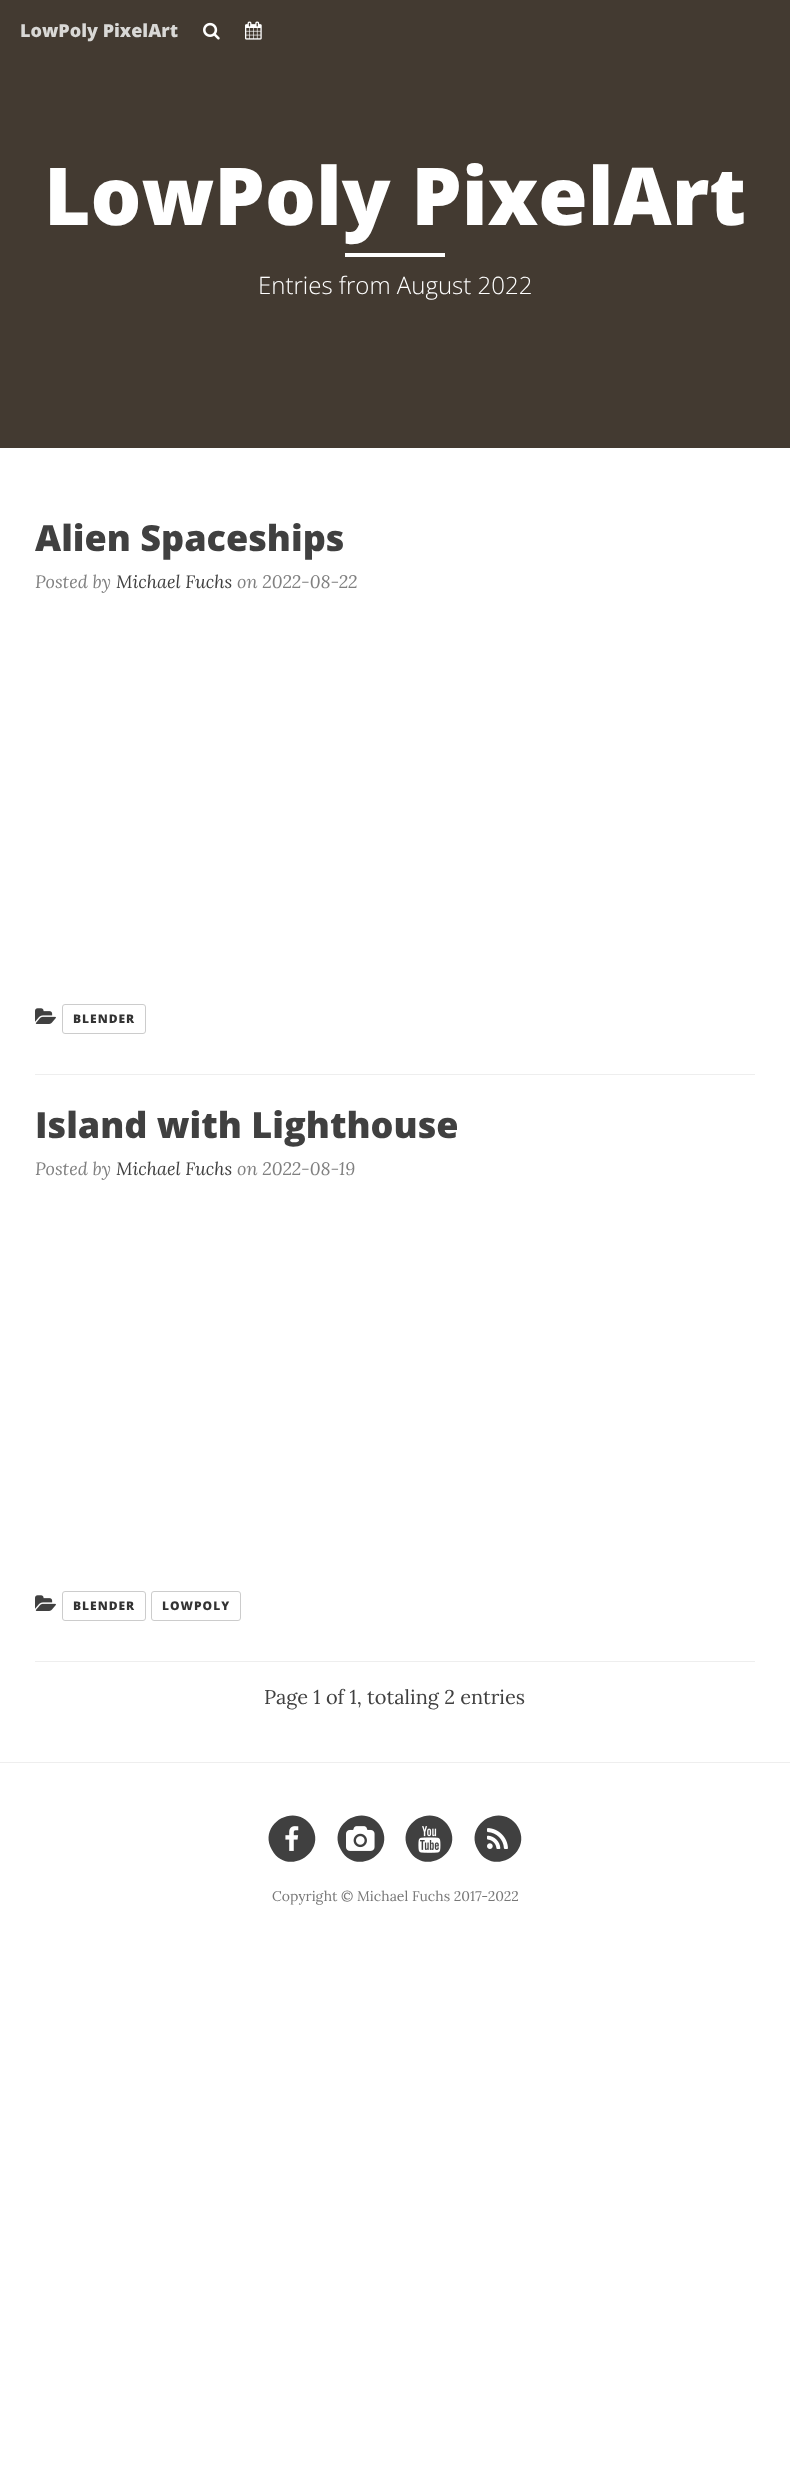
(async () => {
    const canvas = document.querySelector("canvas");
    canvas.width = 790;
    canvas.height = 2477;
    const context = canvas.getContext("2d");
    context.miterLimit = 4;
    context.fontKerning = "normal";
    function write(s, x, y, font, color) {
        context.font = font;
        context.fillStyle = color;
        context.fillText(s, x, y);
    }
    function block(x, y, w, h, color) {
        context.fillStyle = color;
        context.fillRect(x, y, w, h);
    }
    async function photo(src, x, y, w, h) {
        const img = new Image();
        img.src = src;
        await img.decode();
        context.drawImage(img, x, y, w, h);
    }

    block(0, 0, 790, 2477, "rgb(255, 255, 255)");
    block(0, 0, 790, 448, "rgb(67, 58, 49)");
    write("LowPoly PixelArt", 20, 37, "800 18px Open Sans", "rgb(217, 216, 214)");
    await photo("media/1.png", 203, 22, 17, 18);
    await photo("media/2.png", 245, 21, 17, 19);
    write("LowPoly PixelArt", 44, 225, "800 80px Open Sans", "rgb(255, 255, 255)");
    block(345, 253, 100, 4, "rgb(255, 255, 255)");
    write("Entries from August 2022", 258, 294, "300 24px Open Sans", "rgb(255, 255, 255)");
    write("Alien Spaceships", 35, 551, "800 36px Open Sans", "rgb(64, 64, 64)");
    write("Posted by", 35, 588, "italic 18px Lora", "rgb(128, 128, 128)");
    write("Michael Fuchs", 116, 588, "italic 18px Lora", "rgb(64, 64, 64)");
    write("on 2022-08-22", 237, 588, "italic 18px Lora", "rgb(128, 128, 128)");
    await photo("media/3.png", 35, 1008, 21, 16);
    context.beginPath();
    context.roundRect(62.5, 1004.5, 83, 29, 2.5);
    context.strokeStyle = "rgb(204, 204, 204)";
    context.stroke();
    context.letterSpacing = "1px";
    write("BLENDER", 73, 1023, "800 12px Open Sans", "rgb(51, 51, 51)");
    block(35, 1074, 720, 1, "rgb(238, 238, 238)");
    context.letterSpacing = "0px";
    write("Island with Lighthouse", 35, 1138, "800 36px Open Sans", "rgb(64, 64, 64)");
    write("Posted by", 35, 1175, "italic 18px Lora", "rgb(128, 128, 128)");
    write("Michael Fuchs", 116, 1175, "italic 18px Lora", "rgb(64, 64, 64)");
    write("on 2022-08-19", 237, 1175, "italic 18px Lora", "rgb(128, 128, 128)");
    await photo("media/3.png", 35, 1595, 21, 16);
    context.beginPath();
    context.roundRect(62.5, 1591.5, 83, 29, 2.5);
    context.stroke();
    context.letterSpacing = "1px";
    write("BLENDER", 73, 1610, "800 12px Open Sans", "rgb(51, 51, 51)");
    context.beginPath();
    context.roundRect(151.5, 1591.5, 89, 29, 2.5);
    context.stroke();
    write("LOWPOLY", 162, 1610, "800 12px Open Sans", "rgb(51, 51, 51)");
    block(35, 1661, 720, 1, "rgb(238, 238, 238)");
    context.letterSpacing = "0px";
    write("Page 1 of 1, totaling 2 entries", 264, 1704, "20px Lora", "rgb(64, 64, 64)");
    block(0, 1762, 790, 1, "rgb(238, 238, 238)");
    context.fillStyle = "rgb(64, 64, 64)";
    context.beginPath();
    context.moveTo(312, 1827);
    context.bezierCurveTo(327, 1853, 287, 1877, 272, 1850);
    context.bezierCurveTo(257, 1824, 296, 1801, 312, 1827);
    context.closePath();
    context.fill();
    await photo("media/4.png", 285, 1826, 14, 25);
    context.beginPath();
    context.moveTo(381, 1827);
    context.bezierCurveTo(396, 1853, 356, 1877, 341, 1850);
    context.bezierCurveTo(326, 1824, 365, 1801, 381, 1827);
    context.closePath();
    context.fill();
    await photo("media/5.png", 346, 1826, 29, 25);
    context.beginPath();
    context.moveTo(449, 1827);
    context.bezierCurveTo(464, 1853, 424, 1877, 409, 1850);
    context.bezierCurveTo(394, 1824, 433, 1801, 449, 1827);
    context.closePath();
    context.fill();
    await photo("media/6.png", 418, 1826, 23, 27);
    context.beginPath();
    context.moveTo(518, 1827);
    context.bezierCurveTo(533, 1853, 493, 1877, 478, 1850);
    context.bezierCurveTo(463, 1824, 502, 1801, 518, 1827);
    context.closePath();
    context.fill();
    await photo("media/7.png", 487, 1828, 21, 21);
    write("Copyright © Michael Fuchs 2017-2022", 272, 1901, "14px Lora", "rgb(119, 119, 119)");
})();
